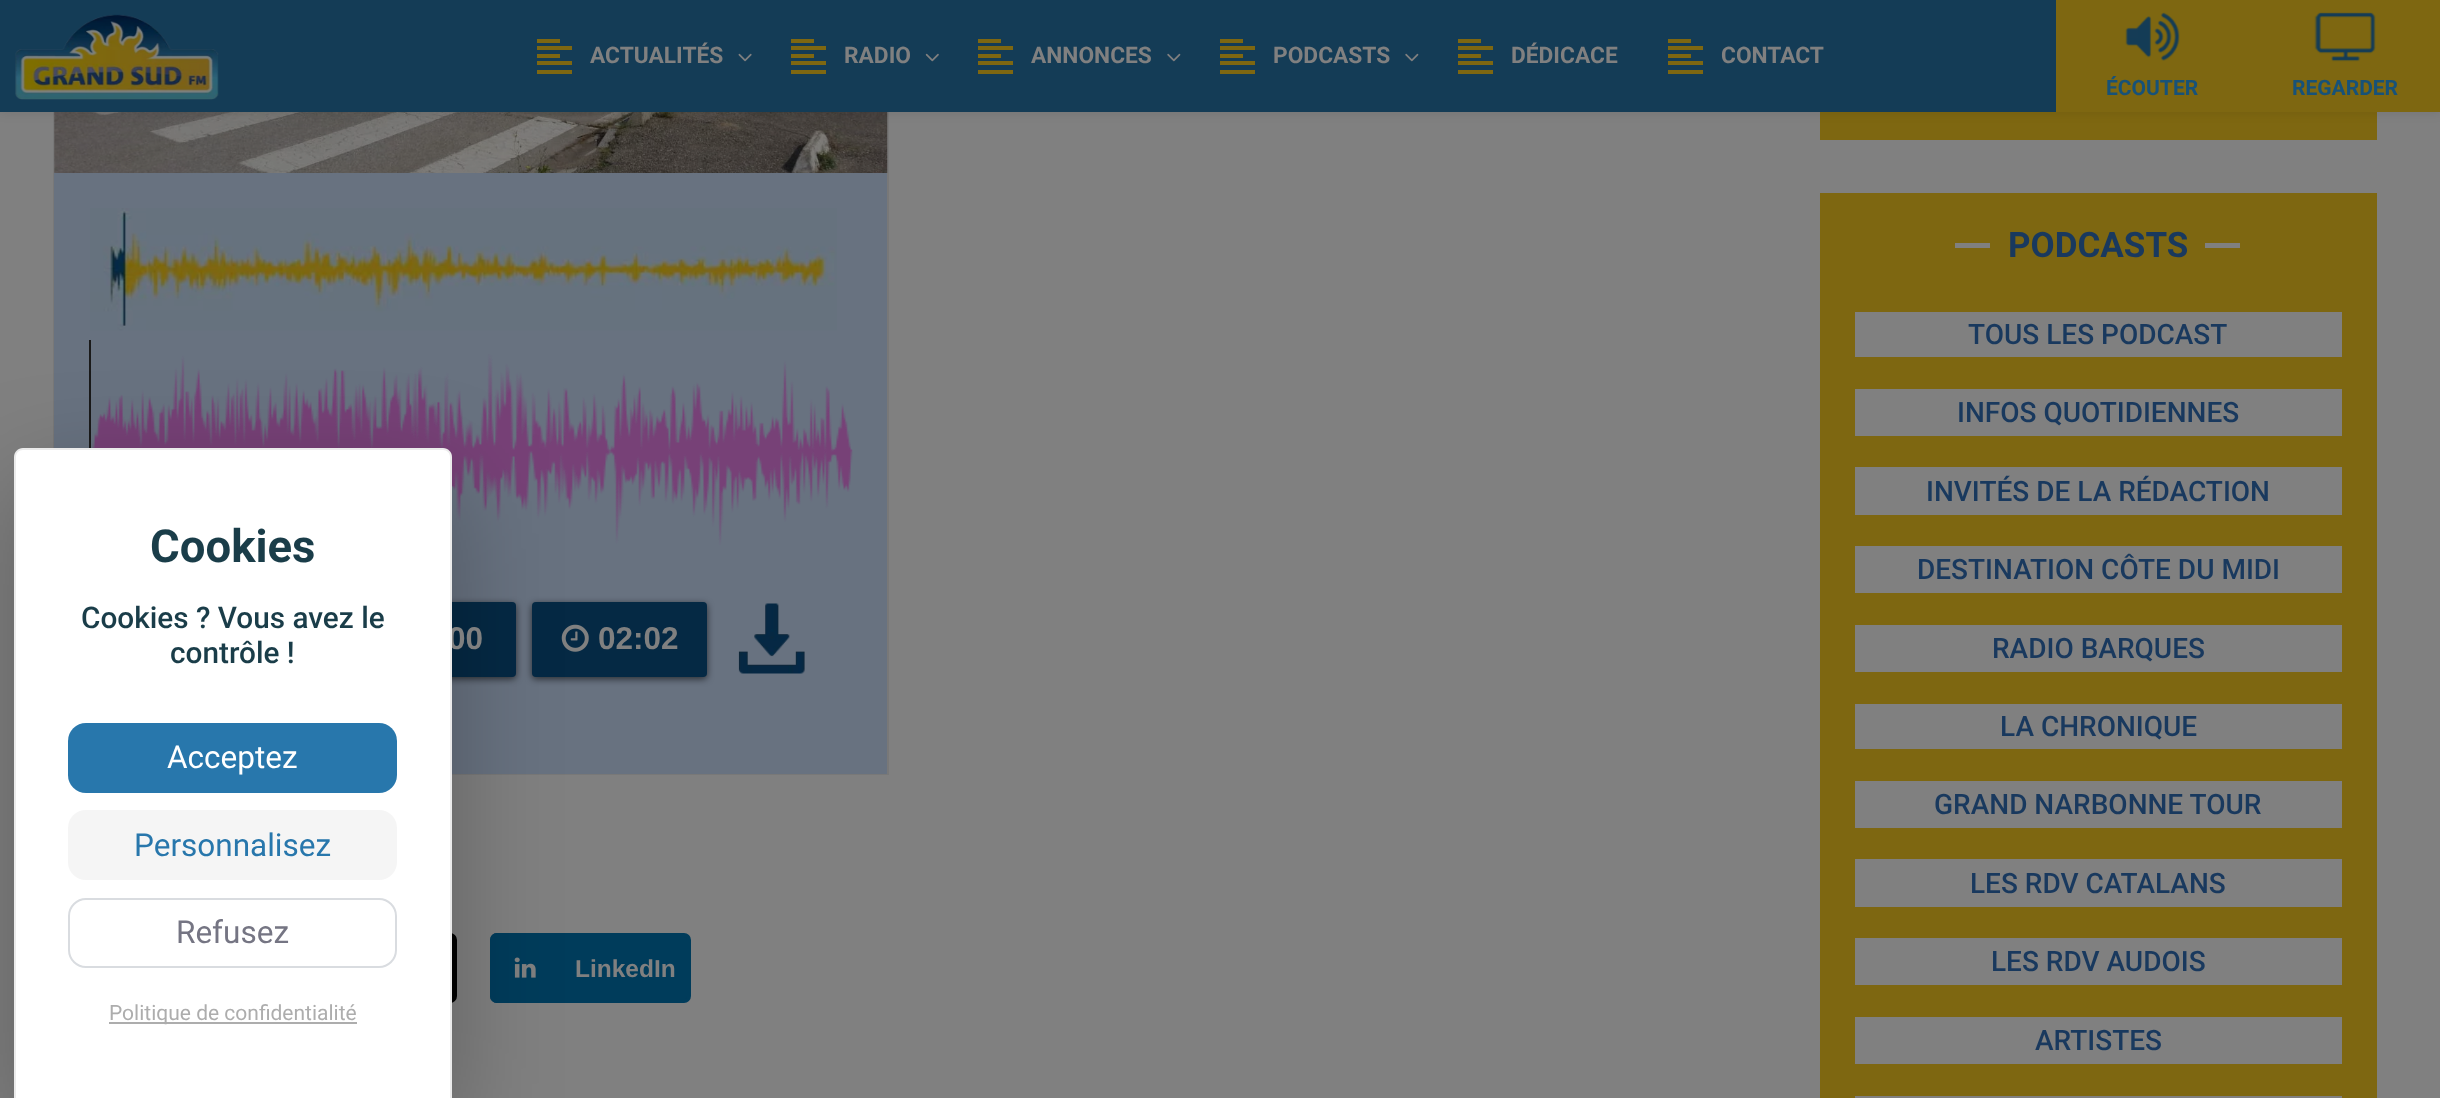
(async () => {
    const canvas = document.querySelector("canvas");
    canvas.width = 2440;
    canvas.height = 1098;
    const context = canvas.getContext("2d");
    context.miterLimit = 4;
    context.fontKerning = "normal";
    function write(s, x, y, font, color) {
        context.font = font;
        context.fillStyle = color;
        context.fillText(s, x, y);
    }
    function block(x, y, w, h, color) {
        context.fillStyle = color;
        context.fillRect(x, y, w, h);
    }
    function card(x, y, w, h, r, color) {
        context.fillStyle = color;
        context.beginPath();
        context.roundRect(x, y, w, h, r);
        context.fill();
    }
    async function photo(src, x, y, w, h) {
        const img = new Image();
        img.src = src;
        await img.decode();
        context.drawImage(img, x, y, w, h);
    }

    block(0, 0, 2440, 1098, "rgb(128, 128, 128)");
    context.strokeStyle = "rgb(120, 120, 120)";
    context.lineWidth = 2;
    context.strokeRect(54, -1, 834, 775);
    block(54, 173, 833, 601, "rgb(104, 114, 128)");
    await photo("media/8.png", 90, 208, 747, 123);
    block(89, 340, 2, 108, "rgb(26, 26, 26)");
    await photo("media/9.png", 91, 354, 762, 191);
    context.fillStyle = "rgba(0, 0, 0, 0.6)";
    context.filter = "blur(3.5px)";
    context.beginPath();
    context.roundRect(341, 604, 175, 75, 4);
    context.fill();
    context.filter = "none";
    card(341, 602, 175, 75, 4, "rgb(5, 41, 68)");
    context.fillStyle = "rgba(0, 0, 0, 0.6)";
    context.filter = "blur(3.5px)";
    context.beginPath();
    context.roundRect(532, 604, 175, 75, 4);
    context.fill();
    context.filter = "none";
    card(532, 602, 175, 75, 4, "rgb(5, 41, 68)");
    await photo("media/10.png", 561, 624, 28, 28);
    context.fillStyle = "rgb(0, 0, 0)";
    context.beginPath();
    context.roundRect(289, 935, 166, 66, 5);
    context.fill();
    context.strokeStyle = "rgb(0, 0, 0)";
    context.lineWidth = 4;
    context.stroke();
    context.fillStyle = "rgb(0, 60, 91)";
    context.beginPath();
    context.roundRect(492, 935, 197, 66, 5);
    context.fill();
    context.strokeStyle = "rgb(0, 60, 91)";
    context.stroke();
    context.beginPath();
    context.roundRect(492, 935, 66, 66, [5, 0, 0, 5]);
    context.fill();
    context.stroke();
    await photo("media/12.png", 514, 957, 22, 21);
    context.fillStyle = "rgba(0, 0, 0, 0.25)";
    context.filter = "blur(52.5px)";
    context.beginPath();
    context.roundRect(14, 483, 438, 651, 9);
    context.fill();
    context.filter = "none";
    write("00", 448, 649, "bold 31.5px Liberation Sans", "rgb(128, 128, 128)");
    context.fillStyle = "rgb(255, 255, 255)";
    context.beginPath();
    context.moveTo(23, 448);
    context.lineTo(443, 448);
    context.bezierCurveTo(448, 448, 452, 452, 452, 457);
    context.lineTo(452, 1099);
    context.lineTo(14, 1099);
    context.lineTo(14, 457);
    context.bezierCurveTo(14, 452, 18, 448, 23, 448);
    context.closePath();
    context.fill();
    context.fillStyle = "rgba(0, 0, 0, 0.08)";
    context.beginPath();
    context.moveTo(23, 448);
    context.lineTo(443, 448);
    context.bezierCurveTo(448, 448, 452, 452, 452, 457);
    context.lineTo(452, 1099);
    context.lineTo(14, 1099);
    context.lineTo(14, 457);
    context.bezierCurveTo(14, 452, 18, 448, 23, 448);
    context.closePath();
    context.moveTo(23, 450);
    context.lineTo(443, 450);
    context.bezierCurveTo(447, 450, 450, 453, 450, 457);
    context.lineTo(450, 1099);
    context.lineTo(16, 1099);
    context.lineTo(16, 457);
    context.bezierCurveTo(16, 453, 19, 450, 23, 450);
    context.closePath();
    context.fill("evenodd");
    write("Cookies", 150, 562, "bold 45.5px Roboto", "rgb(26, 61, 73)");
    write("Cookies ? Vous avez le", 81, 628, "500 29.75px Roboto", "rgb(26, 61, 73)");
    write("contrôle !", 170, 663, "500 29.75px Roboto", "rgb(26, 61, 73)");
    card(68, 723, 329, 70, 18, "rgb(40, 119, 172)");
    write("Acceptez", 167, 768, "31.5px Roboto", "rgb(255, 255, 255)");
    card(68, 810, 329, 70, 18, "rgb(245, 245, 245)");
    write("Personnalisez", 134, 856, "31.5px Roboto", "rgb(40, 119, 172)");
    context.beginPath();
    context.roundRect(69, 899, 327, 68, 17);
    context.strokeStyle = "rgb(217, 220, 224)";
    context.lineWidth = 2;
    context.stroke();
    write("Refusez", 176, 943, "31.5px Roboto", "rgb(117, 117, 131)");
    block(109, 1022, 248, 2, "rgb(173, 173, 173)");
    write("Politique de confidentialité", 109, 1020, "21px Roboto", "rgb(173, 173, 173)");
    await photo("media/7.png", 54, 112, 834, 61);
    block(1820, 112, 557, 28, "rgb(126, 103, 17)");
    context.fillStyle = "rgba(0, 0, 0, 0.1)";
    context.filter = "blur(6px)";
    context.beginPath();
    context.rect(0, 0, 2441, 112);
    context.fill();
    context.filter = "none";
    block(0, 0, 2056, 112, "rgb(20, 60, 86)");
    await photo("media/1.png", 15, 14, 204, 86);
    block(537, 39, 23, 4, "rgb(126, 103, 17)");
    block(537, 54, 23, 4, "rgb(126, 103, 17)");
    write("ACTUALITÉS", 590, 63, "bold 22.75px Roboto", "rgb(128, 128, 128)");
    block(537, 46, 35, 4, "rgb(126, 103, 17)");
    block(537, 61, 35, 4, "rgb(126, 103, 17)");
    await photo("media/2.png", 738, 53, 14, 9);
    block(537, 70, 35, 4, "rgb(126, 103, 17)");
    block(791, 39, 23, 4, "rgb(126, 103, 17)");
    block(791, 54, 23, 4, "rgb(126, 103, 17)");
    block(791, 46, 35, 4, "rgb(126, 103, 17)");
    block(791, 61, 35, 4, "rgb(126, 103, 17)");
    write("RADIO", 844, 63, "bold 22.75px Roboto", "rgb(128, 128, 128)");
    await photo("media/3.png", 925, 53, 14, 9);
    block(791, 70, 35, 4, "rgb(126, 103, 17)");
    block(978, 39, 23, 4, "rgb(126, 103, 17)");
    block(978, 54, 23, 4, "rgb(126, 103, 17)");
    block(978, 46, 35, 4, "rgb(126, 103, 17)");
    block(978, 61, 35, 4, "rgb(126, 103, 17)");
    write("ANNONCES", 1031, 63, "bold 22.75px Roboto", "rgb(128, 128, 128)");
    await photo("media/4.png", 1167, 53, 14, 9);
    block(978, 70, 35, 4, "rgb(126, 103, 17)");
    block(1220, 39, 23, 4, "rgb(126, 103, 17)");
    block(1220, 54, 23, 4, "rgb(126, 103, 17)");
    block(1220, 46, 35, 4, "rgb(126, 103, 17)");
    block(1220, 61, 35, 4, "rgb(126, 103, 17)");
    write("PODCASTS", 1273, 63, "bold 22.75px Roboto", "rgb(128, 128, 128)");
    await photo("media/4.png", 1405, 53, 14, 9);
    block(1220, 70, 35, 4, "rgb(126, 103, 17)");
    block(1458, 39, 23, 4, "rgb(126, 103, 17)");
    block(1458, 54, 23, 4, "rgb(126, 103, 17)");
    write("DÉDICACE", 1511, 63, "bold 22.75px Roboto", "rgb(128, 128, 128)");
    block(1458, 46, 35, 4, "rgb(126, 103, 17)");
    block(1458, 61, 35, 4, "rgb(126, 103, 17)");
    block(1458, 70, 35, 4, "rgb(126, 103, 17)");
    block(1668, 39, 23, 4, "rgb(126, 103, 17)");
    block(1668, 54, 23, 4, "rgb(126, 103, 17)");
    block(1668, 46, 35, 4, "rgb(126, 103, 17)");
    block(1668, 61, 35, 4, "rgb(126, 103, 17)");
    write("CONTACT", 1721, 63, "bold 22.75px Roboto", "rgb(128, 128, 128)");
    block(1668, 70, 35, 4, "rgb(126, 103, 17)");
    block(2056, 0, 384, 112, "rgb(126, 103, 17)");
    await photo("media/5.png", 2125, 12, 55, 49);
    write("ÉCOUTER", 2106, 95, "bold 21px Roboto", "rgb(23, 82, 121)");
    await photo("media/6.png", 2314, 12, 62, 50);
    write("REGARDER", 2292, 95, "bold 21px Roboto", "rgb(23, 82, 121)");
    write("02:02", 598, 649, "bold 31.5px Liberation Sans", "rgb(128, 128, 128)");
    await photo("media/11.png", 738, 603, 67, 71);
    write("LinkedIn", 575, 977, "bold 24.5px Liberation Sans", "rgb(128, 128, 128)");
    block(1820, 193, 557, 905, "rgb(126, 103, 17)");
    block(1955, 243, 35, 5, "rgb(128, 128, 128)");
    write("PODCASTS", 2008, 257, "bold 35px Roboto", "rgb(25, 57, 94)");
    block(2205, 243, 35, 5, "rgb(128, 128, 128)");
    block(1855, 312, 487, 45, "rgb(128, 128, 128)");
    write("TOUS LES PODCAST", 1968, 344, "500 28px Roboto", "rgb(25, 57, 94)");
    block(1855, 389, 487, 47, "rgb(128, 128, 128)");
    write("INFOS QUOTIDIENNES", 1957, 422, "500 28px Roboto", "rgb(25, 57, 94)");
    block(1855, 467, 487, 48, "rgb(128, 128, 128)");
    write("INVITÉS DE LA RÉDACTION", 1926, 501, "500 28px Roboto", "rgb(25, 57, 94)");
    block(1855, 546, 487, 47, "rgb(128, 128, 128)");
    write("DESTINATION CÔTE DU MIDI", 1917, 579, "500 28px Roboto", "rgb(25, 57, 94)");
    block(1855, 625, 487, 47, "rgb(128, 128, 128)");
    write("RADIO BARQUES", 1992, 658, "500 28px Roboto", "rgb(25, 57, 94)");
    block(1855, 704, 487, 45, "rgb(128, 128, 128)");
    write("LA CHRONIQUE", 2000, 736, "500 28px Roboto", "rgb(25, 57, 94)");
    block(1855, 781, 487, 47, "rgb(128, 128, 128)");
    write("GRAND NARBONNE TOUR", 1934, 814, "500 28px Roboto", "rgb(25, 57, 94)");
    block(1855, 859, 487, 48, "rgb(128, 128, 128)");
    write("LES RDV CATALANS", 1970, 893, "500 28px Roboto", "rgb(25, 57, 94)");
    block(1855, 938, 487, 47, "rgb(128, 128, 128)");
    write("LES RDV AUDOIS", 1991, 971, "500 28px Roboto", "rgb(25, 57, 94)");
    block(1855, 1017, 487, 47, "rgb(128, 128, 128)");
    write("ARTISTES", 2035, 1050, "500 28px Roboto", "rgb(25, 57, 94)");
    block(1855, 1096, 487, 2, "rgb(128, 128, 128)");
})();
